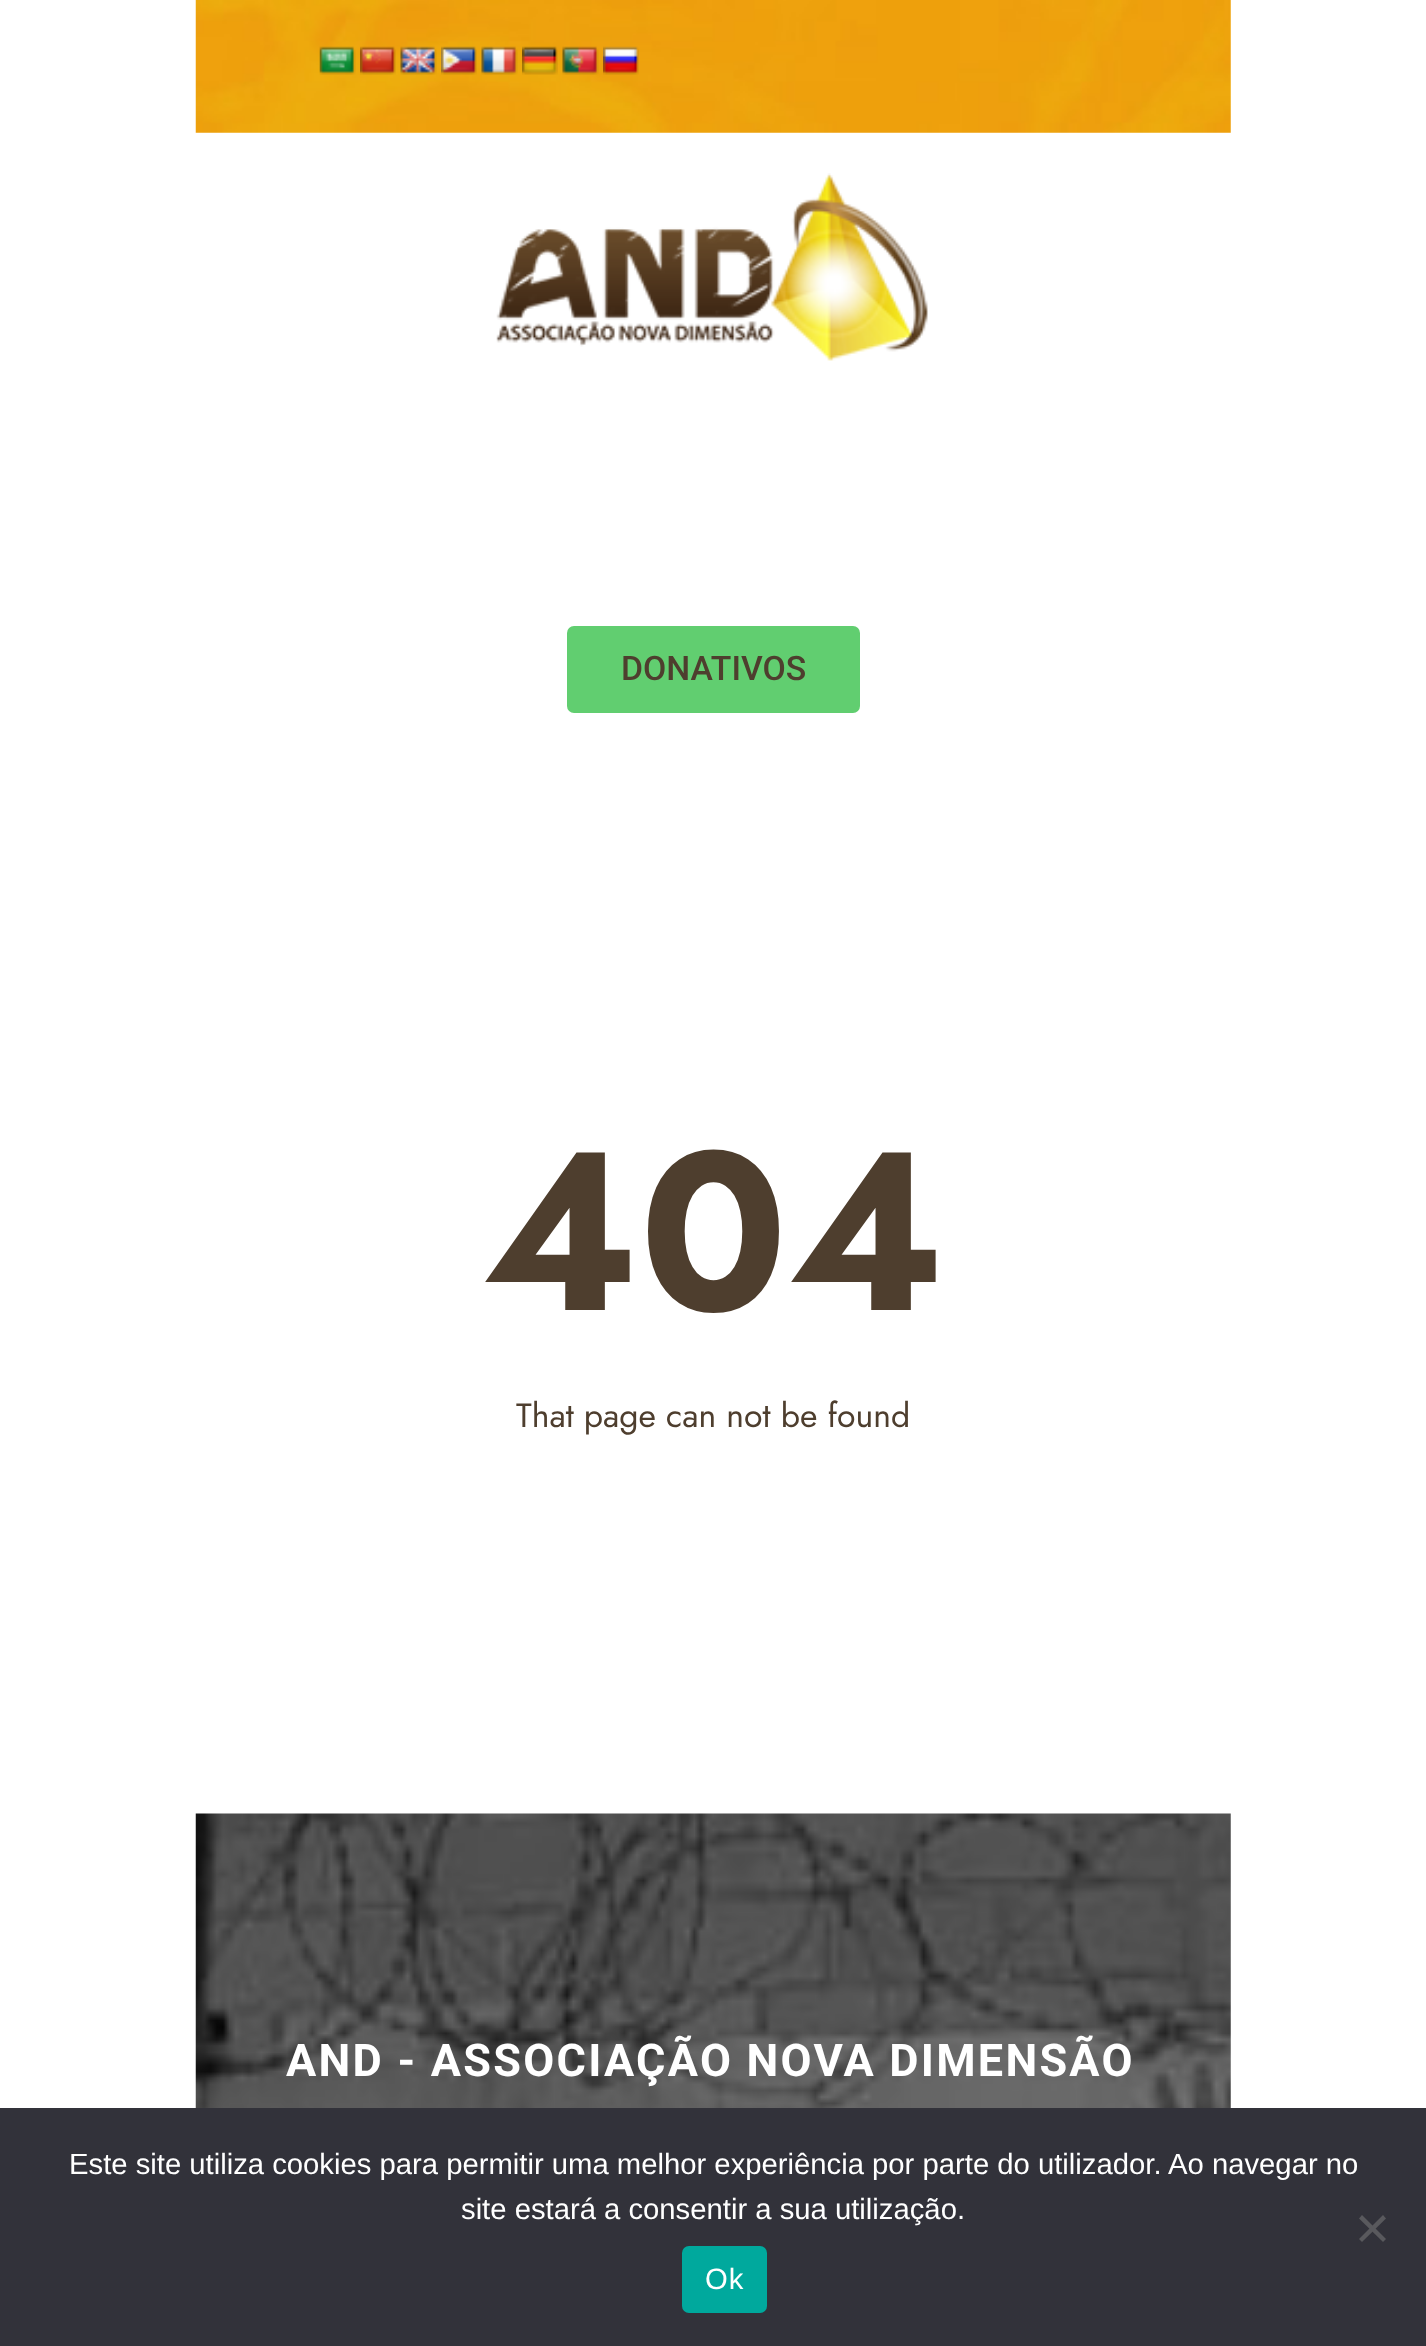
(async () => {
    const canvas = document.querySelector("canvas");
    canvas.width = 1426;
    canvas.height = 2346;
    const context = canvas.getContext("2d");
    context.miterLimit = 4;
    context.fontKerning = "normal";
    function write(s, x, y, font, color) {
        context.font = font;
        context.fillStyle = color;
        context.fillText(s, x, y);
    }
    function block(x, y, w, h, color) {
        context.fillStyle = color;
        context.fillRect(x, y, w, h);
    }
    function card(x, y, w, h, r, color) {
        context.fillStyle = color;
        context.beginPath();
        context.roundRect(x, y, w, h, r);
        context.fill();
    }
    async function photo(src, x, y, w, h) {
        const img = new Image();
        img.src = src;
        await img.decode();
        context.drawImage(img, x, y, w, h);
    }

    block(0, 0, 1426, 2346, "rgb(255, 255, 255)");
    await photo("media/1.png", 195, 0, 1036, 133);
    await photo("media/2.png", 319, 46, 37, 29);
    await photo("media/3.png", 360, 46, 36, 29);
    await photo("media/4.png", 400, 46, 37, 29);
    await photo("media/5.png", 441, 46, 36, 29);
    await photo("media/6.png", 481, 46, 37, 29);
    await photo("media/7.png", 522, 46, 36, 29);
    await photo("media/8.png", 562, 46, 37, 29);
    await photo("media/9.png", 603, 46, 36, 29);
    await photo("media/10.png", 496, 173, 432, 188);
    card(567, 626, 293, 87, 7, "rgb(97, 206, 112)");
    write("DONATIVOS", 621, 680, "500 33.75px Roboto", "rgb(78, 62, 46)");
    write("404", 482, 1310, "bold 225px Jost", "rgb(78, 62, 46)");
    write("That page can not be found", 516, 1427, "33.75px Jost", "rgb(78, 62, 46)");
    await photo("media/11.png", 195, 1813, 1036, 295);
    context.letterSpacing = "2.25px";
    write("AND - ASSOCIAÇÃO NOVA DIMENSÃO", 286, 2076, "bold 45px Roboto", "rgb(255, 255, 255)");
    block(0, 2108, 1426, 238, "rgb(50, 50, 58)");
    context.letterSpacing = "0px";
    write("Este site utiliza cookies para permitir uma melhor experiência por parte do utilizador. Ao navegar no", 69, 2174, "29.25px Liberation Sans", "rgb(255, 255, 255)");
    write("site estará a consentir a sua utilização.", 461, 2219, "29.25px Liberation Sans", "rgb(255, 255, 255)");
    context.fillStyle = "rgb(89, 89, 93)";
    context.beginPath();
    context.moveTo(1383, 2215);
    context.lineTo(1386, 2218.5);
    context.lineTo(1362, 2242);
    context.lineTo(1359, 2239);
    context.closePath();
    context.fill();
    context.beginPath();
    context.moveTo(1359, 2218.5);
    context.lineTo(1362, 2215);
    context.lineTo(1386, 2239);
    context.lineTo(1383, 2242);
    context.closePath();
    context.fill();
    card(682, 2246, 85, 67, 7, "rgb(0, 169, 157)");
    context.letterSpacing = "1px";
    write("Ok", 705, 2289, "29.25px Liberation Sans", "rgb(255, 255, 255)");
})();
